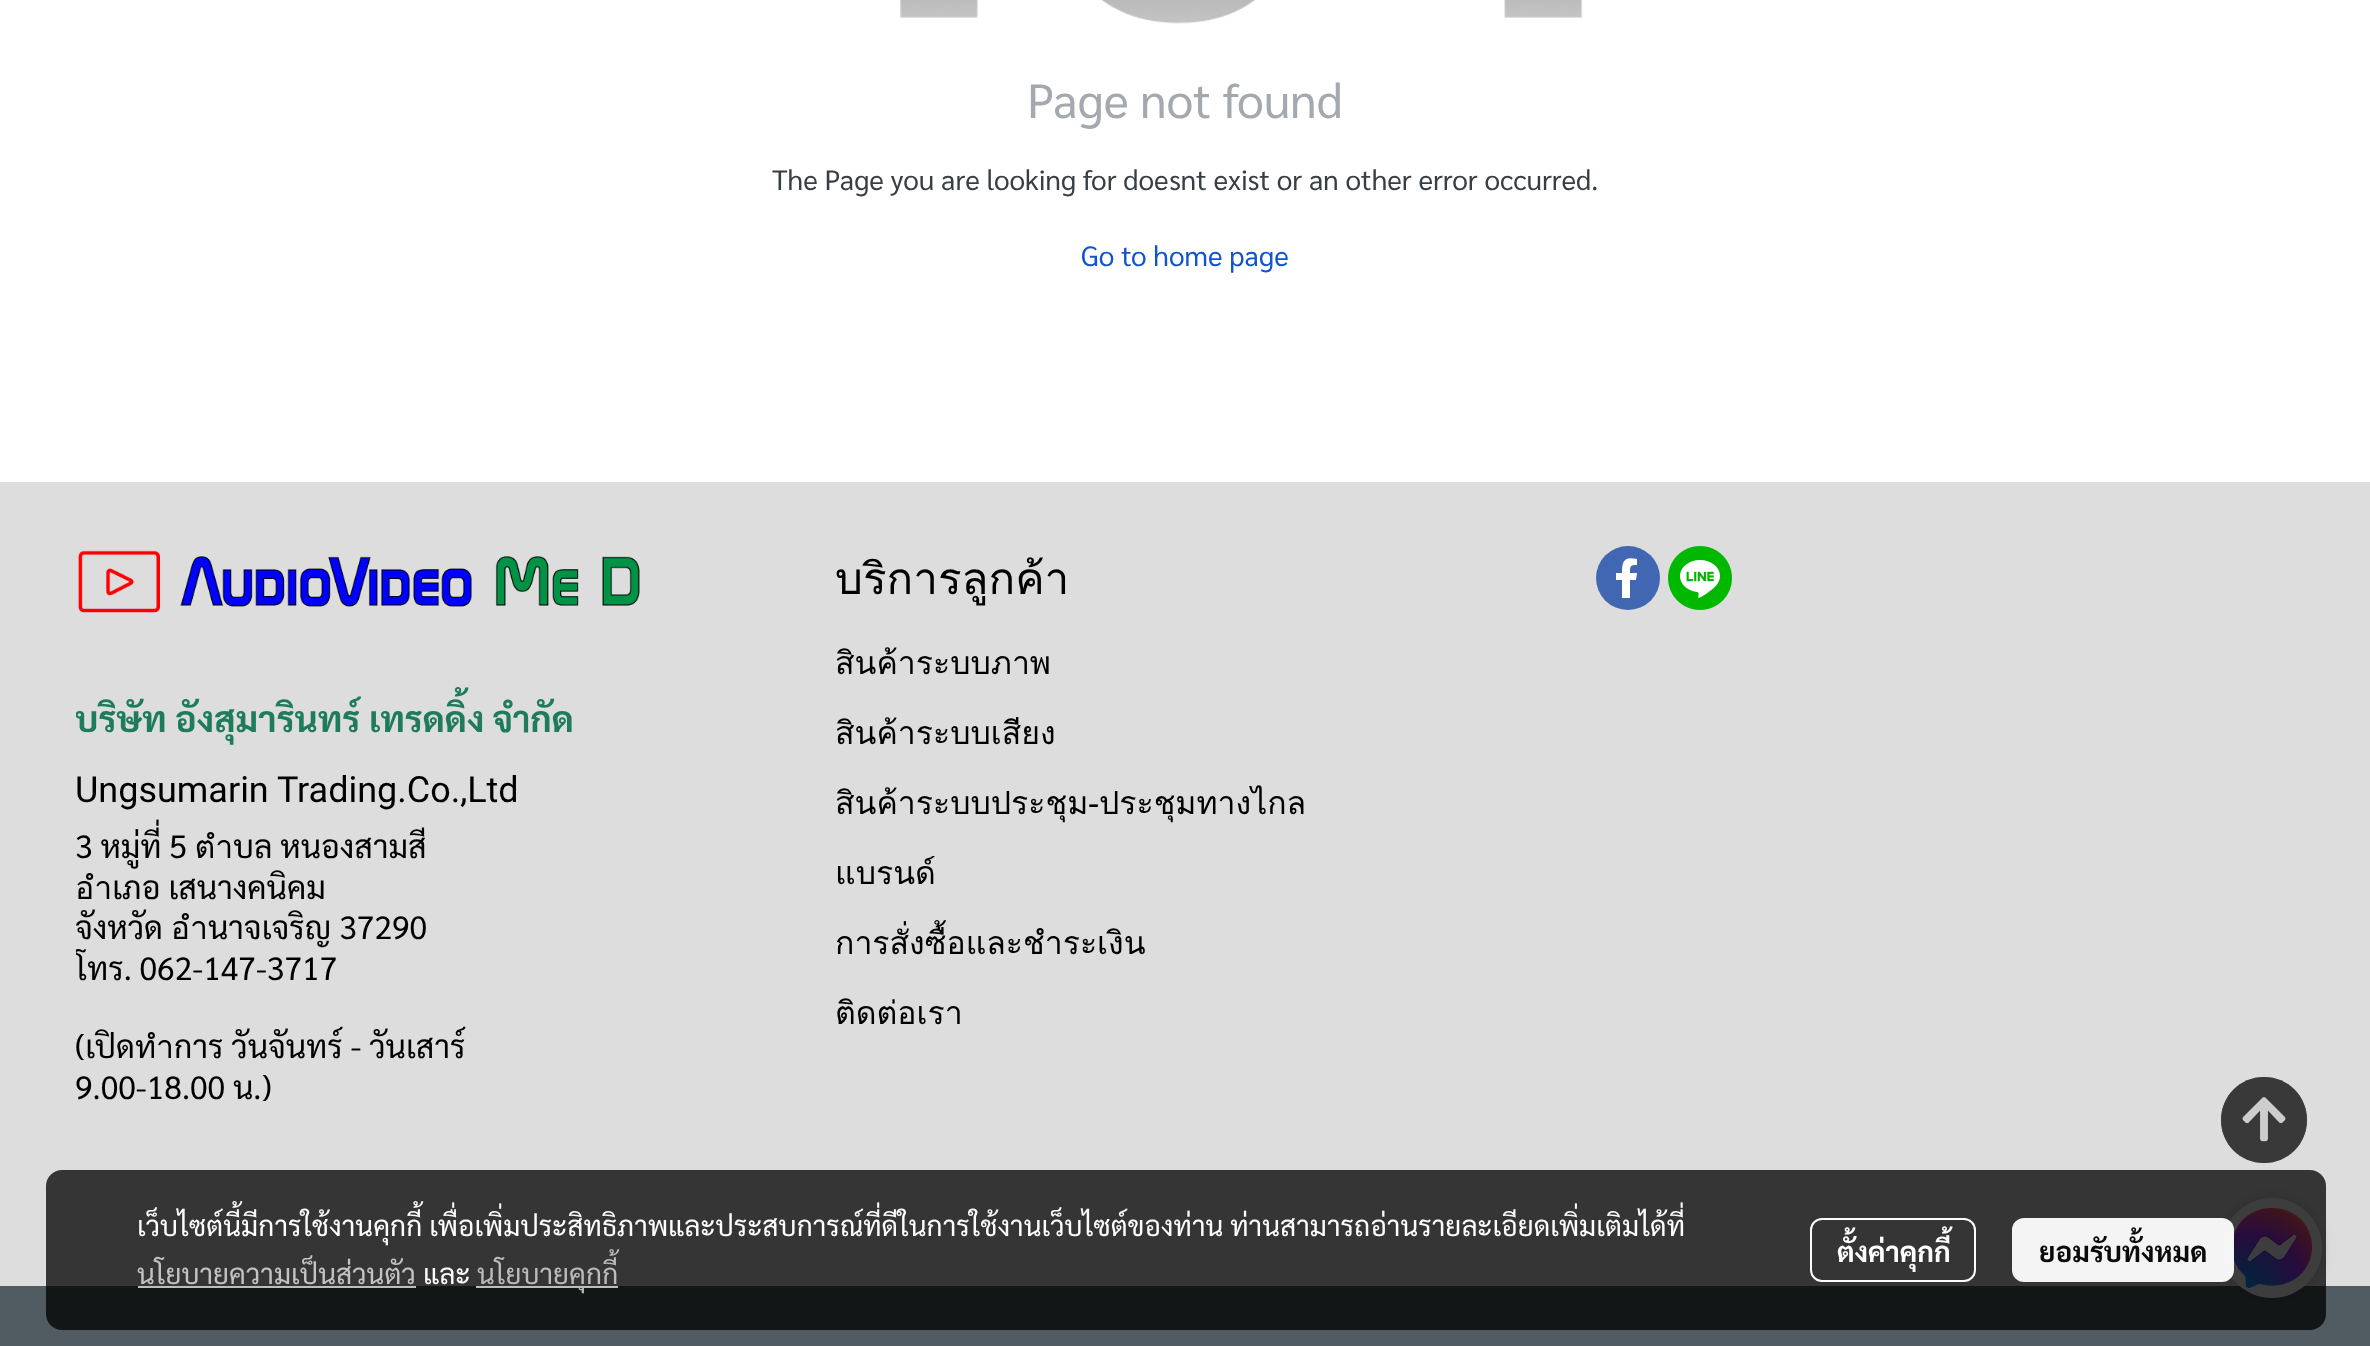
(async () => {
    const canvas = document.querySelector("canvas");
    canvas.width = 2370;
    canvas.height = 1346;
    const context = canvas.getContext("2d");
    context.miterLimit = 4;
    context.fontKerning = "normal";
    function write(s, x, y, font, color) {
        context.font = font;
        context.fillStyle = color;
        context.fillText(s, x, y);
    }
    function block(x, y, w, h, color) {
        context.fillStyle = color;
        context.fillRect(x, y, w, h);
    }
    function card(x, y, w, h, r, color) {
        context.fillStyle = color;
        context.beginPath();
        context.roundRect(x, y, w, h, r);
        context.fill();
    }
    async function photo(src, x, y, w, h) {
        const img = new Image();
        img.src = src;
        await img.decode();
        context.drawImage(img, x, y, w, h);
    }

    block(0, 0, 2370, 1346, "rgb(255, 255, 255)");
    await photo("media/1.png", 900, 0, 683, 24);
    write("Page not found", 1027, 118, "48px Sarabun", "rgb(164, 169, 175)");
    write("The Page you are looking for doesnt exist or an other error occurred.", 772, 190, "28px Sarabun", "rgb(55, 62, 68)");
    write("Go to home page", 1081, 266, "28px Sarabun", "rgb(17, 85, 204)");
    block(0, 482, 2370, 804, "rgb(221, 221, 221)");
    context.fillStyle = "rgb(96, 96, 96)";
    context.beginPath();
    context.moveTo(2264, 1077);
    context.bezierCurveTo(2240, 1077, 2221, 1096, 2221, 1120);
    context.bezierCurveTo(2221, 1144, 2240, 1163, 2264, 1163);
    context.bezierCurveTo(2288, 1163, 2307, 1144, 2307, 1120);
    context.bezierCurveTo(2307, 1096, 2288, 1077, 2264, 1077);
    context.closePath();
    context.fill();
    await photo("media/2.png", 2242, 1097, 44, 45);
    block(0, 1286, 2370, 60, "rgb(81, 92, 98)");
    context.fillStyle = "rgba(0, 0, 0, 0.14)";
    context.filter = "blur(7px)";
    context.beginPath();
    context.roundRect(2222, 1198, 100, 100, 50);
    context.fill();
    context.filter = "none";
    context.fillStyle = "rgb(255, 255, 255)";
    context.beginPath();
    context.arc(2272, 1248, 50, 0, Math.PI * 2);
    context.fill();
    await photo("media/3.png", 2232, 1208, 80, 80);
    await photo("media/4.png", 78, 550, 562, 63);
    context.save();
    context.beginPath();
    context.rect(76, 682, 700, 540);
    context.clip();
    write("บริษัท อังสุมารินทร์ เทรดดิ้ง จำกัด", 75, 732, "bold 36px Sarabun", "rgb(30, 124, 90)");
    context.restore();
    write("Ungsumarin Trading.Co.,Ltd", 75, 802, "36px Roboto", "rgb(0, 0, 0)");
    write("3 หมู่ที่ 5 ตำบล หนองสามสี", 75, 858, "32px Sarabun", "rgb(0, 0, 0)");
    context.save();
    context.beginPath();
    context.rect(76, 682, 700, 540);
    context.clip();
    write("อำเภอ เสนางคนิคม", 75, 899, "32px Sarabun", "rgb(0, 0, 0)");
    write("จังหวัด อำนาจเจริญ 37290", 75, 939, "32px Sarabun", "rgb(0, 0, 0)");
    write("โทร. 062-147-3717", 75, 980, "32px Sarabun", "rgb(0, 0, 0)");
    write("(เปิดทำการ วันจันทร์ - วันเสาร์", 75, 1058, "32px Sarabun", "rgb(0, 0, 0)");
    context.restore();
    write("9.00-18.00 น.)", 75, 1099, "32px Sarabun", "rgb(0, 0, 0)");
    write("บริการลูกค้า", 835, 594, "44px Loma", "rgb(0, 0, 0)");
    write("สินค้าระบบภาพ", 835, 674, "32px Loma", "rgb(0, 0, 0)");
    write("สินค้าระบบเสียง", 835, 744, "32px Loma", "rgb(0, 0, 0)");
    write("สินค้าระบบประชุม-ประชุมทางไกล", 835, 814, "32px Loma", "rgb(0, 0, 0)");
    write("แบรนด์", 835, 884, "32px Loma", "rgb(0, 0, 0)");
    write("การสั่งซื้อและชำระเงิน", 835, 954, "32px Loma", "rgb(0, 0, 0)");
    write("ติดต่อเรา", 835, 1024, "32px Loma", "rgb(0, 0, 0)");
    context.fillStyle = "rgb(66, 103, 178)";
    context.beginPath();
    context.arc(1628, 578, 32, 0, Math.PI * 2);
    context.fill();
    context.fillStyle = "rgb(255, 255, 255)";
    context.beginPath();
    context.moveTo(1636, 580);
    context.lineTo(1630, 580);
    context.lineTo(1630, 598);
    context.lineTo(1622, 598);
    context.lineTo(1622, 580);
    context.lineTo(1616, 580);
    context.lineTo(1616, 573);
    context.lineTo(1622, 573);
    context.bezierCurveTo(1622, 561, 1624, 556, 1637, 559);
    context.lineTo(1637, 565);
    context.bezierCurveTo(1630, 565, 1630, 566, 1630, 573);
    context.lineTo(1637, 573);
    context.closePath();
    context.fill();
    await photo("media/5.png", 1668, 546, 64, 64);
    context.fillStyle = "rgba(43, 42, 42, 0.7)";
    context.beginPath();
    context.moveTo(2264, 1077);
    context.bezierCurveTo(2240, 1077, 2221, 1096, 2221, 1120);
    context.bezierCurveTo(2221, 1144, 2240, 1163, 2264, 1163);
    context.bezierCurveTo(2288, 1163, 2307, 1144, 2307, 1120);
    context.bezierCurveTo(2307, 1096, 2288, 1077, 2264, 1077);
    context.closePath();
    context.fill();
    await photo("media/6.png", 2242, 1097, 44, 45);
    card(46, 1170, 2280, 160, 16, "rgba(0, 0, 0, 0.76)");
    write("เว็บไซต์นี้มีการใช้งานคุกกี้ เพื่อเพิ่มประสิทธิภาพและประสบการณ์ที่ดีในการใช้งานเว็บไซต์ของท่าน ท่านสามารถอ่านรายละเอียดเพิ่มเติมได้ที่", 137, 1236, "28px Sarabun", "rgb(253, 253, 253)");
    write("นโยบายความเป็นส่วนตัว", 137, 1284, "28px Sarabun", "rgb(195, 195, 195)");
    write("และ", 423, 1284, "28px Sarabun", "rgb(253, 253, 253)");
    block(138, 1286, 278, 2, "rgb(188, 189, 189)");
    block(476, 1286, 142, 2, "rgb(188, 189, 189)");
    write("นโยบายคุกกี้", 477, 1284, "28px Sarabun", "rgb(187, 187, 187)");
    context.beginPath();
    context.roundRect(1811, 1219, 164, 62, 11);
    context.strokeStyle = "rgb(253, 253, 253)";
    context.lineWidth = 2;
    context.stroke();
    write("ตั้งค่าคุกกี้", 1837, 1262, "bold 28px Sarabun", "rgb(253, 253, 253)");
    card(2012, 1218, 222, 64, 12, "rgba(255, 255, 255, 0.95)");
    write("ยอมรับทั้งหมด", 2039, 1262, "bold 28px Sarabun", "rgb(11, 11, 11)");
})();
